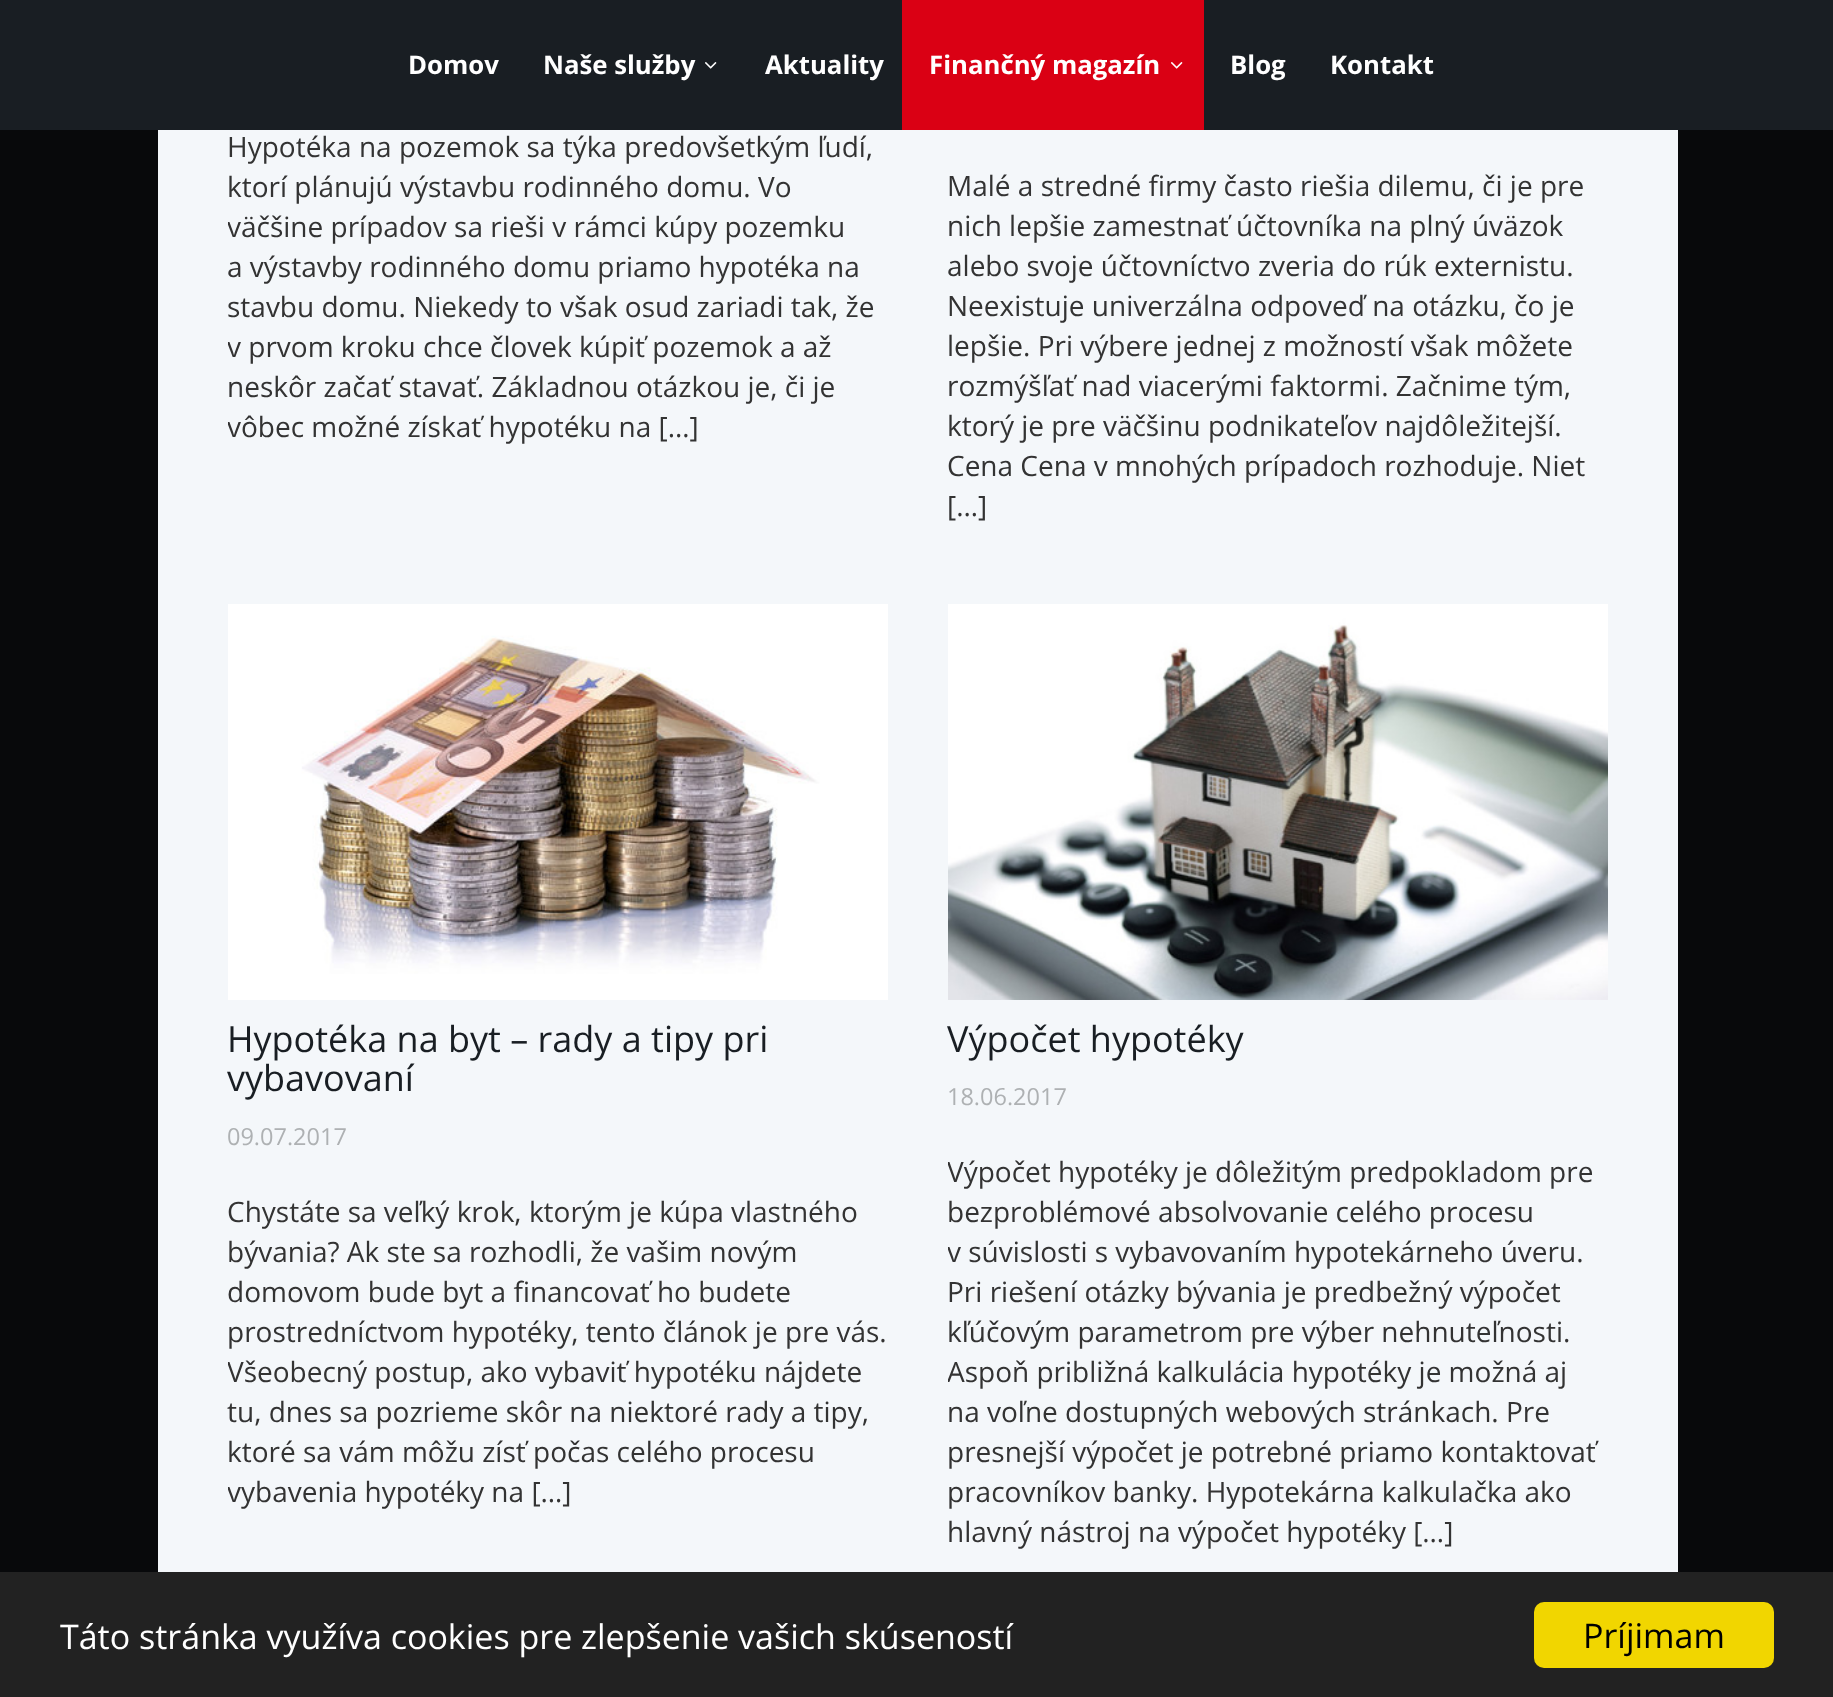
(async () => {
    const canvas = document.querySelector("canvas");
    canvas.width = 1833;
    canvas.height = 1697;
    const context = canvas.getContext("2d");
    context.miterLimit = 4;
    context.fontKerning = "normal";
    function write(s, x, y, font, color) {
        context.font = font;
        context.fillStyle = color;
        context.fillText(s, x, y);
    }
    function block(x, y, w, h, color) {
        context.fillStyle = color;
        context.fillRect(x, y, w, h);
    }
    function card(x, y, w, h, r, color) {
        context.fillStyle = color;
        context.beginPath();
        context.roundRect(x, y, w, h, r);
        context.fill();
    }
    async function photo(src, x, y, w, h) {
        const img = new Image();
        img.src = src;
        await img.decode();
        context.drawImage(img, x, y, w, h);
    }

    block(0, 0, 1833, 1697, "rgb(8, 9, 11)");
    block(0, 0, 1833, 130, "rgb(25, 30, 35)");
    write("Domov", 408, 74, "bold 25.75px Open Sans", "rgb(255, 255, 255)");
    write("Naše služby", 543, 74, "bold 25.75px Open Sans", "rgb(255, 255, 255)");
    await photo("media/1.png", 705, 62, 12, 7);
    write("Aktuality", 765, 74, "bold 25.75px Open Sans", "rgb(255, 255, 255)");
    block(902, 0, 302, 130, "rgb(218, 0, 20)");
    write("Finančný magazín", 929, 74, "bold 25.75px Open Sans", "rgb(255, 255, 255)");
    await photo("media/2.png", 1171, 62, 12, 7);
    write("Blog", 1230, 74, "bold 25.75px Open Sans", "rgb(255, 255, 255)");
    write("Kontakt", 1330, 74, "bold 25.75px Open Sans", "rgb(255, 255, 255)");
    block(158, 130, 1520, 1442, "rgb(244, 247, 250)");
    write("Hypotéka na pozemok sa týka predovšetkým ľudí,", 227, 157, "28px Open Sans", "rgb(51, 51, 51)");
    write("ktorí plánujú výstavbu rodinného domu. Vo", 227, 197, "28px Open Sans", "rgb(51, 51, 51)");
    context.save();
    context.beginPath();
    context.rect(228, 90, 660, 394);
    context.clip();
    write("väčšine prípadov sa rieši v rámci kúpy pozemku", 227, 237, "28px Open Sans", "rgb(51, 51, 51)");
    context.restore();
    write("a výstavby rodinného domu priamo hypotéka na", 227, 277, "28px Open Sans", "rgb(51, 51, 51)");
    write("stavbu domu. Niekedy to však osud zariadi tak, že", 227, 317, "28px Open Sans", "rgb(51, 51, 51)");
    context.save();
    context.beginPath();
    context.rect(228, 90, 660, 394);
    context.clip();
    write("v prvom kroku chce človek kúpiť pozemok a až", 227, 357, "28px Open Sans", "rgb(51, 51, 51)");
    context.restore();
    write("neskôr začať stavať. Základnou otázkou je, či je", 227, 397, "28px Open Sans", "rgb(51, 51, 51)");
    context.save();
    context.beginPath();
    context.rect(228, 90, 660, 394);
    context.clip();
    write("vôbec možné získať hypotéku na […]", 227, 437, "28px Open Sans", "rgb(51, 51, 51)");
    context.restore();
    write("Malé a stredné firmy často riešia dilemu, či je pre", 947, 196, "28px Open Sans", "rgb(51, 51, 51)");
    write("nich lepšie zamestnať účtovníka na plný úväzok", 947, 236, "28px Open Sans", "rgb(51, 51, 51)");
    write("alebo svoje účtovníctvo zveria do rúk externistu.", 947, 276, "28px Open Sans", "rgb(51, 51, 51)");
    write("Neexistuje univerzálna odpoveď na otázku, čo je", 947, 316, "28px Open Sans", "rgb(51, 51, 51)");
    write("lepšie. Pri výbere jednej z možností však môžete", 947, 356, "28px Open Sans", "rgb(51, 51, 51)");
    write("rozmýšľať nad viacerými faktormi. Začnime tým,", 947, 396, "28px Open Sans", "rgb(51, 51, 51)");
    write("ktorý je pre väčšinu podnikateľov najdôležitejší.", 947, 436, "28px Open Sans", "rgb(51, 51, 51)");
    write("Cena Cena v mnohých prípadoch rozhoduje. Niet", 947, 476, "28px Open Sans", "rgb(51, 51, 51)");
    write("[…]", 947, 516, "28px Open Sans", "rgb(51, 51, 51)");
    await photo("media/3.png", 228, 604, 660, 396);
    write("Hypotéka na byt – rady a tipy pri", 227, 1052, "36px Open Sans", "rgb(25, 30, 35)");
    write("vybavovaní", 227, 1091, "36px Open Sans", "rgb(25, 30, 35)");
    write("09.07.2017", 227, 1145, "23.5px Open Sans", "rgb(174, 177, 179)");
    write("Chystáte sa veľký krok, ktorým je kúpa vlastného", 227, 1222, "28px Open Sans", "rgb(51, 51, 51)");
    write("bývania? Ak ste sa rozhodli, že vašim novým", 227, 1262, "28px Open Sans", "rgb(51, 51, 51)");
    write("domovom bude byt a financovať ho budete", 227, 1302, "28px Open Sans", "rgb(51, 51, 51)");
    write("prostredníctvom hypotéky, tento článok je pre vás.", 227, 1342, "28px Open Sans", "rgb(51, 51, 51)");
    context.save();
    context.beginPath();
    context.rect(228, 1154, 660, 394);
    context.clip();
    write("Všeobecný postup, ako vybaviť hypotéku nájdete", 227, 1382, "28px Open Sans", "rgb(51, 51, 51)");
    context.restore();
    write("tu, dnes sa pozrieme skôr na niektoré rady a tipy,", 227, 1422, "28px Open Sans", "rgb(51, 51, 51)");
    write("ktoré sa vám môžu zísť počas celého procesu", 227, 1462, "28px Open Sans", "rgb(51, 51, 51)");
    context.save();
    context.beginPath();
    context.rect(228, 1154, 660, 394);
    context.clip();
    write("vybavenia hypotéky na […]", 227, 1502, "28px Open Sans", "rgb(51, 51, 51)");
    context.restore();
    await photo("media/4.png", 948, 604, 660, 396);
    write("Výpočet hypotéky", 947, 1052, "36px Open Sans", "rgb(25, 30, 35)");
    write("18.06.2017", 947, 1105, "23.5px Open Sans", "rgb(174, 177, 179)");
    context.save();
    context.beginPath();
    context.rect(948, 1114, 660, 476);
    context.clip();
    write("Výpočet hypotéky je dôležitým predpokladom pre", 947, 1182, "28px Open Sans", "rgb(51, 51, 51)");
    context.restore();
    write("bezproblémové absolvovanie celého procesu", 947, 1222, "28px Open Sans", "rgb(51, 51, 51)");
    context.save();
    context.beginPath();
    context.rect(948, 1114, 660, 476);
    context.clip();
    write("v súvislosti s vybavovaním hypotekárneho úveru.", 947, 1262, "28px Open Sans", "rgb(51, 51, 51)");
    context.restore();
    write("Pri riešení otázky bývania je predbežný výpočet", 947, 1302, "28px Open Sans", "rgb(51, 51, 51)");
    write("kľúčovým parametrom pre výber nehnuteľnosti.", 947, 1342, "28px Open Sans", "rgb(51, 51, 51)");
    context.save();
    context.beginPath();
    context.rect(948, 1114, 660, 476);
    context.clip();
    write("Aspoň približná kalkulácia hypotéky je možná aj", 947, 1382, "28px Open Sans", "rgb(51, 51, 51)");
    context.restore();
    write("na voľne dostupných webových stránkach. Pre", 947, 1422, "28px Open Sans", "rgb(51, 51, 51)");
    write("presnejší výpočet je potrebné priamo kontaktovať", 947, 1462, "28px Open Sans", "rgb(51, 51, 51)");
    write("pracovníkov banky. Hypotekárna kalkulačka ako", 947, 1502, "28px Open Sans", "rgb(51, 51, 51)");
    write("hlavný nástroj na výpočet hypotéky […]", 947, 1542, "28px Open Sans", "rgb(51, 51, 51)");
    block(0, 1572, 1833, 125, "rgb(34, 34, 34)");
    write("Táto stránka využíva cookies pre zlepšenie vašich skúseností", 60, 1649, "34px Open Sans", "rgb(255, 255, 255)");
    card(1534, 1602, 240, 66, 10, "rgb(241, 214, 0)");
    write("Príjimam", 1583, 1648, "34px Open Sans", "rgb(0, 0, 0)");
})();
